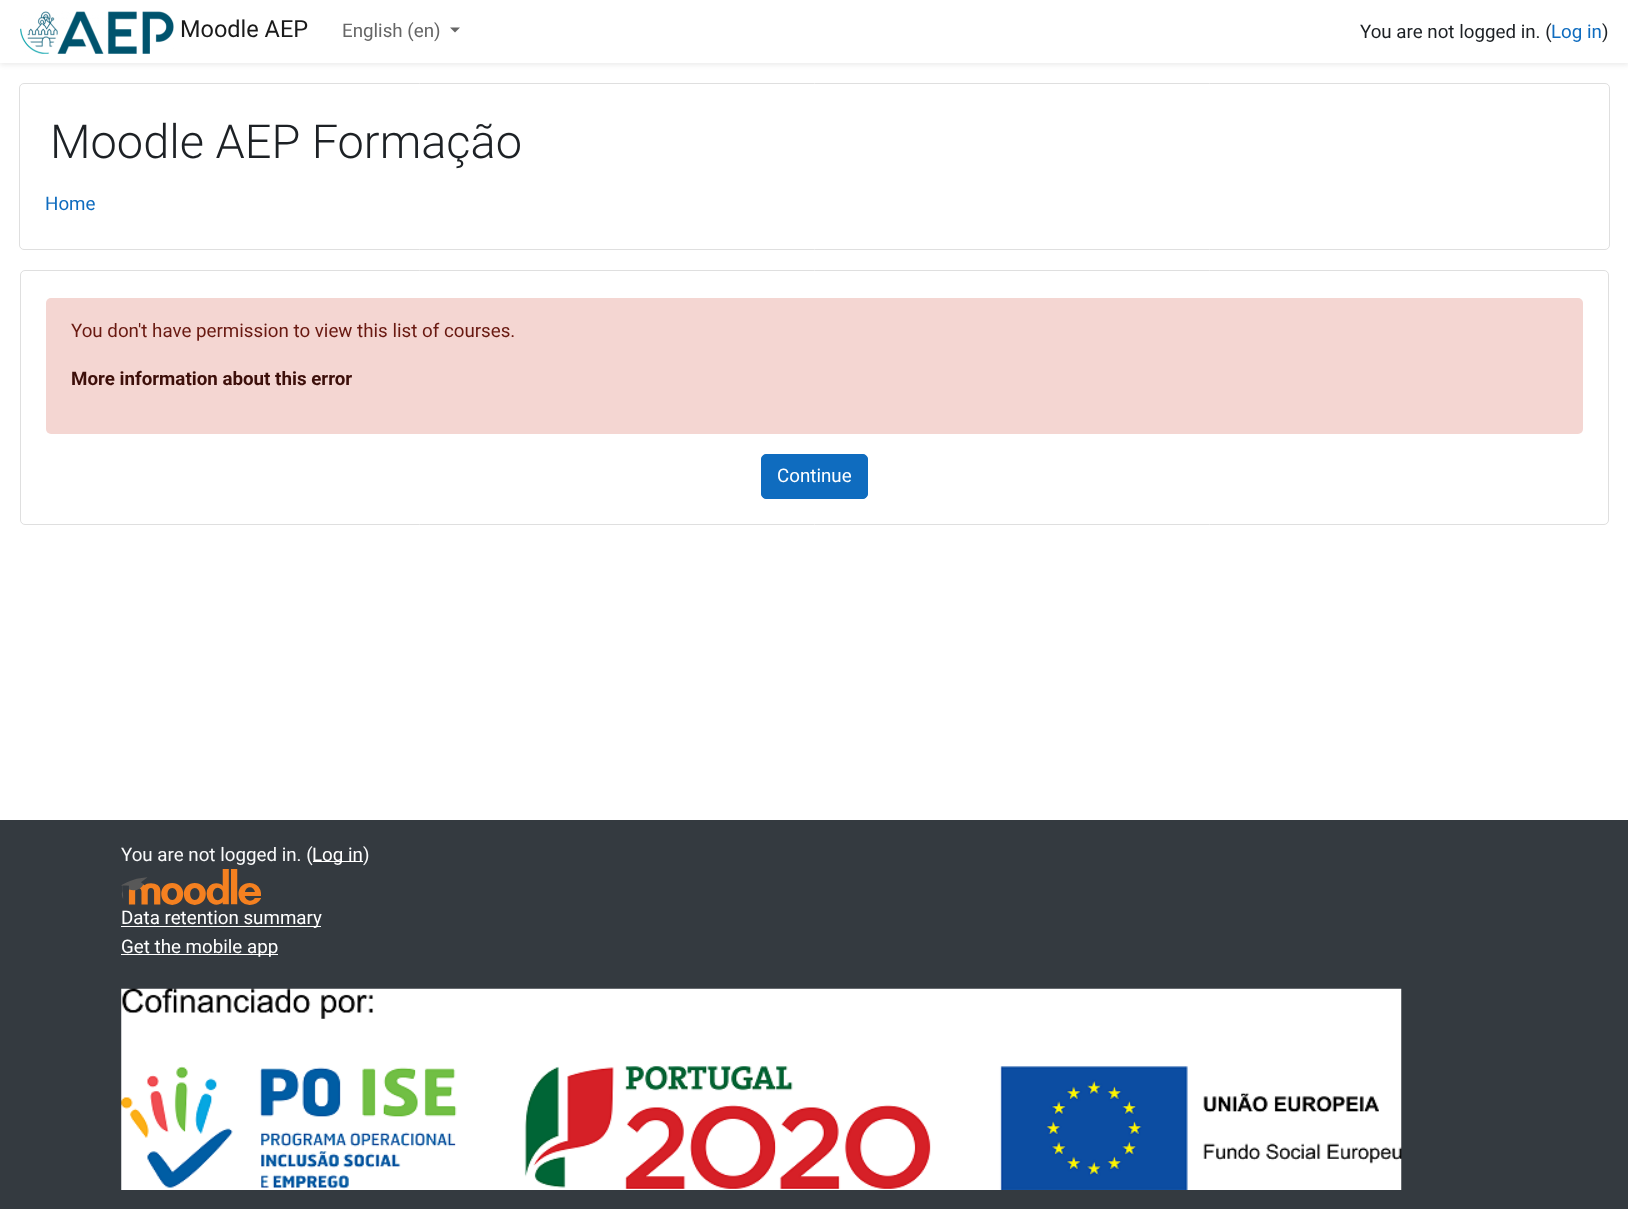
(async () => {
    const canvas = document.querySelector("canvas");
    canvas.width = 1628;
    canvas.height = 1209;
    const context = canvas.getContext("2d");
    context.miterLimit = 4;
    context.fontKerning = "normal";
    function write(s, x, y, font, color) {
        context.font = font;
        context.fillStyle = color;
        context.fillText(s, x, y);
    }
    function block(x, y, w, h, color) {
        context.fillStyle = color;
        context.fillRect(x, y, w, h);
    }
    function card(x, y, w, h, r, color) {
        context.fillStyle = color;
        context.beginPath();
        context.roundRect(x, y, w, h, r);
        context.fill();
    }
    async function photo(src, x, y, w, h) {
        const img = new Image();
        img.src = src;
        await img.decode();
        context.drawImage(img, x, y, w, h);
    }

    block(0, 0, 1628, 1209, "rgb(255, 255, 255)");
    context.fillStyle = "rgba(0, 0, 0, 0.08)";
    context.filter = "blur(2.5px)";
    context.beginPath();
    context.rect(0, 3, 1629, 62);
    context.fill();
    context.filter = "none";
    block(0, 0, 1628, 63, "rgb(255, 255, 255)");
    await photo("media/1.png", 20, 11, 154, 43);
    write("Moodle AEP", 180, 37, "23.5px Roboto", "rgb(26, 26, 26)");
    write("English (en)", 342, 37, "18.75px Roboto", "rgb(102, 102, 102)");
    context.beginPath();
    context.moveTo(450, 27.5);
    context.lineTo(460, 27.5);
    context.lineTo(455, 32.5);
    context.closePath();
    context.fill();
    write("You are not logged in. (", 1360, 38, "18.75px Roboto", "rgb(29, 33, 37)");
    write("Log in", 1551, 38, "18.75px Roboto", "rgb(15, 108, 191)");
    write(")", 1602, 38, "18.75px Roboto", "rgb(29, 33, 37)");
    context.beginPath();
    context.roundRect(19.5, 83.5, 1590, 166, 4.5);
    context.strokeStyle = "rgb(223, 223, 223)";
    context.stroke();
    write("Moodle AEP Formação", 50, 158, "300 46.9px Roboto", "rgb(29, 33, 37)");
    write("Home", 45, 210, "18.75px Roboto", "rgb(15, 108, 191)");
    context.beginPath();
    context.roundRect(20.5, 270.5, 1588, 254, 4.5);
    context.stroke();
    card(46, 298, 1537, 136, 5, "rgb(244, 214, 210)");
    write("You don't have permission to view this list of courses.", 71, 337, "18.75px Roboto", "rgb(105, 25, 17)");
    write("More information about this error", 71, 385, "bold 18.75px Roboto", "rgb(61, 15, 10)");
    context.fillStyle = "rgb(15, 108, 191)";
    context.beginPath();
    context.roundRect(761.5, 454.5, 106, 44, 4.5);
    context.fill();
    context.strokeStyle = "rgb(15, 108, 191)";
    context.stroke();
    write("Continue", 777, 482, "18.75px Roboto", "rgb(255, 255, 255)");
    block(0, 820, 1628, 389, "rgb(52, 58, 64)");
    write("You are not logged in. (", 121, 861, "18.75px Roboto", "rgb(248, 249, 250)");
    block(313, 861, 50, 1, "rgb(255, 255, 255)");
    write("Log in", 312, 861, "18.75px Roboto", "rgb(255, 255, 255)");
    write(")", 363, 861, "18.75px Roboto", "rgb(248, 249, 250)");
    await photo("media/2.png", 121, 869, 140, 36);
    block(121, 926, 200, 1, "rgb(255, 255, 255)");
    write("Data retention summary", 121, 924, "18.75px Roboto", "rgb(255, 255, 255)");
    block(121, 954, 157, 1, "rgb(255, 255, 255)");
    write("Get the mobile app", 121, 953, "18.75px Roboto", "rgb(255, 255, 255)");
    await photo("media/3.png", 121, 988, 1281, 202);
})();
